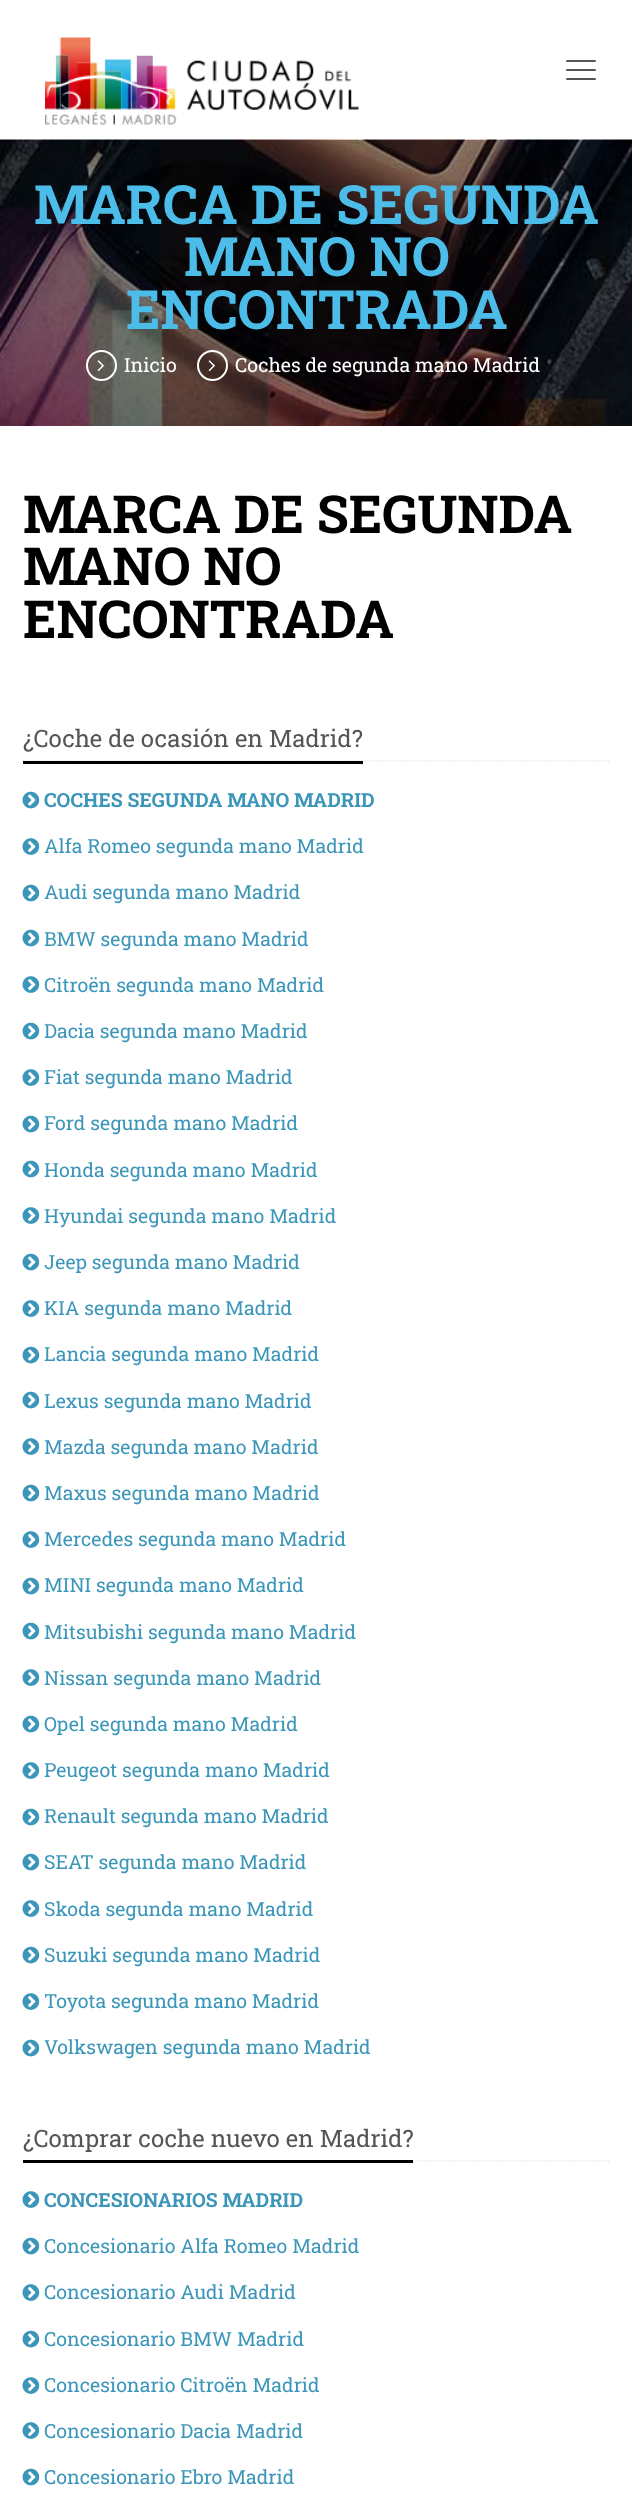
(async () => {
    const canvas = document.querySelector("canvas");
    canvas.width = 632;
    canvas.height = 2508;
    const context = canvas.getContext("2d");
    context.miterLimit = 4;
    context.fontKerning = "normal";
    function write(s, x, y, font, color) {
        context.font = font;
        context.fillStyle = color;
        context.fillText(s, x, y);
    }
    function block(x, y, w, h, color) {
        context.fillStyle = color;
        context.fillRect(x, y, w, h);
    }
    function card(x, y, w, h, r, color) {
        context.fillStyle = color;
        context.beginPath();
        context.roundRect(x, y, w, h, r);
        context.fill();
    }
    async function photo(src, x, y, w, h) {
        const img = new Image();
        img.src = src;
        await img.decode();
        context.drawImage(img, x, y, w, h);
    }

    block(0, 0, 632, 2508, "rgb(255, 255, 255)");
    await photo("media/1.png", 45, 37, 314, 88);
    card(566, 60, 30, 2, 1, "rgb(85, 85, 85)");
    card(566, 69, 30, 2, 1, "rgb(85, 85, 85)");
    card(566, 78, 30, 2, 1, "rgb(85, 85, 85)");
    await photo("media/2.png", 0, 139, 632, 287);
    write("MARCA DE SEGUNDA", 34, 224, "bold 54px Roboto Slab", "rgb(76, 188, 232)");
    write("MANO NO", 184, 276, "bold 54px Roboto Slab", "rgb(76, 188, 232)");
    write("ENCONTRADA", 126, 329, "bold 54px Roboto Slab", "rgb(76, 188, 232)");
    context.beginPath();
    context.arc(101.5, 365.5, 14.5, 0, Math.PI * 2);
    context.strokeStyle = "rgb(255, 255, 255)";
    context.lineWidth = 2;
    context.stroke();
    await photo("media/3.png", 97, 360, 7, 12);
    write("Inicio", 124, 372, "19.5px Roboto Slab", "rgb(255, 255, 255)");
    context.beginPath();
    context.arc(212.5, 365.5, 14.5, 0, Math.PI * 2);
    context.stroke();
    await photo("media/4.png", 208, 360, 7, 12);
    write("Coches de segunda mano Madrid", 235, 372, "19.5px Roboto Slab", "rgb(255, 255, 255)");
    write("MARCA DE SEGUNDA", 23, 533, "bold 52.5px Roboto Slab", "rgb(0, 0, 0)");
    write("MANO NO", 23, 585, "bold 52.5px Roboto Slab", "rgb(0, 0, 0)");
    write("ENCONTRADA", 23, 638, "bold 52.5px Roboto Slab", "rgb(0, 0, 0)");
    context.beginPath();
    context.moveTo(22.5, 761);
    context.lineTo(610.5, 761);
    context.strokeStyle = "rgb(228, 233, 240)";
    context.lineWidth = 1.5;
    context.setLineDash([1.5, 1.5]);
    context.stroke();
    block(23, 761, 340, 3, "rgb(0, 0, 0)");
    write("¿Coche de ocasión en Madrid?", 23, 747, "24px Roboto Slab", "rgb(85, 85, 85)");
    await photo("media/5.png", 22, 791, 18, 18);
    write("COCHES SEGUNDA MANO MADRID", 44, 807, "bold 19.5px Roboto Slab", "rgb(60, 150, 185)");
    await photo("media/6.png", 22, 838, 18, 17);
    write("Alfa Romeo segunda mano Madrid", 44, 853, "19.5px Roboto Slab", "rgb(60, 150, 185)");
    await photo("media/5.png", 22, 884, 18, 18);
    write("Audi segunda mano Madrid", 44, 899, "19.5px Roboto Slab", "rgb(60, 150, 185)");
    await photo("media/5.png", 22, 929, 18, 18);
    write("BMW segunda mano Madrid", 44, 946, "19.5px Roboto Slab", "rgb(60, 150, 185)");
    await photo("media/6.png", 22, 976, 18, 17);
    write("Citroën segunda mano Madrid", 44, 992, "19.5px Roboto Slab", "rgb(60, 150, 185)");
    await photo("media/5.png", 22, 1022, 18, 18);
    write("Dacia segunda mano Madrid", 44, 1038, "19.5px Roboto Slab", "rgb(60, 150, 185)");
    await photo("media/6.png", 22, 1069, 18, 17);
    write("Fiat segunda mano Madrid", 44, 1084, "19.5px Roboto Slab", "rgb(60, 150, 185)");
    await photo("media/5.png", 22, 1115, 18, 18);
    write("Ford segunda mano Madrid", 44, 1130, "19.5px Roboto Slab", "rgb(60, 150, 185)");
    await photo("media/5.png", 22, 1160, 18, 18);
    write("Honda segunda mano Madrid", 44, 1177, "19.5px Roboto Slab", "rgb(60, 150, 185)");
    await photo("media/6.png", 22, 1207, 18, 17);
    write("Hyundai segunda mano Madrid", 44, 1223, "19.5px Roboto Slab", "rgb(60, 150, 185)");
    await photo("media/5.png", 22, 1253, 18, 18);
    write("Jeep segunda mano Madrid", 44, 1269, "19.5px Roboto Slab", "rgb(60, 150, 185)");
    await photo("media/6.png", 22, 1300, 18, 17);
    write("KIA segunda mano Madrid", 44, 1315, "19.5px Roboto Slab", "rgb(60, 150, 185)");
    await photo("media/5.png", 22, 1346, 18, 18);
    write("Lancia segunda mano Madrid", 44, 1361, "19.5px Roboto Slab", "rgb(60, 150, 185)");
    await photo("media/5.png", 22, 1391, 18, 18);
    write("Lexus segunda mano Madrid", 44, 1408, "19.5px Roboto Slab", "rgb(60, 150, 185)");
    await photo("media/6.png", 22, 1438, 18, 17);
    write("Mazda segunda mano Madrid", 44, 1454, "19.5px Roboto Slab", "rgb(60, 150, 185)");
    await photo("media/5.png", 22, 1484, 18, 18);
    write("Maxus segunda mano Madrid", 44, 1500, "19.5px Roboto Slab", "rgb(60, 150, 185)");
    await photo("media/6.png", 22, 1531, 18, 17);
    write("Mercedes segunda mano Madrid", 44, 1546, "19.5px Roboto Slab", "rgb(60, 150, 185)");
    await photo("media/5.png", 22, 1577, 18, 18);
    write("MINI segunda mano Madrid", 44, 1592, "19.5px Roboto Slab", "rgb(60, 150, 185)");
    await photo("media/5.png", 22, 1622, 18, 18);
    write("Mitsubishi segunda mano Madrid", 44, 1639, "19.5px Roboto Slab", "rgb(60, 150, 185)");
    await photo("media/6.png", 22, 1669, 18, 17);
    write("Nissan segunda mano Madrid", 44, 1685, "19.5px Roboto Slab", "rgb(60, 150, 185)");
    await photo("media/5.png", 22, 1715, 18, 18);
    write("Opel segunda mano Madrid", 44, 1731, "19.5px Roboto Slab", "rgb(60, 150, 185)");
    await photo("media/6.png", 22, 1762, 18, 17);
    write("Peugeot segunda mano Madrid", 44, 1777, "19.5px Roboto Slab", "rgb(60, 150, 185)");
    await photo("media/5.png", 22, 1808, 18, 18);
    write("Renault segunda mano Madrid", 44, 1823, "19.5px Roboto Slab", "rgb(60, 150, 185)");
    await photo("media/5.png", 22, 1853, 18, 18);
    write("SEAT segunda mano Madrid", 44, 1869, "19.5px Roboto Slab", "rgb(60, 150, 185)");
    await photo("media/6.png", 22, 1900, 18, 17);
    write("Skoda segunda mano Madrid", 44, 1916, "19.5px Roboto Slab", "rgb(60, 150, 185)");
    await photo("media/5.png", 22, 1946, 18, 18);
    write("Suzuki segunda mano Madrid", 44, 1962, "19.5px Roboto Slab", "rgb(60, 150, 185)");
    await photo("media/6.png", 22, 1993, 18, 17);
    write("Toyota segunda mano Madrid", 44, 2008, "19.5px Roboto Slab", "rgb(60, 150, 185)");
    await photo("media/5.png", 22, 2039, 18, 18);
    write("Volkswagen segunda mano Madrid", 44, 2054, "19.5px Roboto Slab", "rgb(60, 150, 185)");
    context.beginPath();
    context.moveTo(22.5, 2161);
    context.lineTo(610.5, 2161);
    context.stroke();
    block(23, 2160, 390, 3, "rgb(0, 0, 0)");
    write("¿Comprar coche nuevo en Madrid?", 23, 2147, "24px Roboto Slab", "rgb(85, 85, 85)");
    await photo("media/6.png", 22, 2191, 18, 17);
    write("CONCESIONARIOS MADRID", 44, 2207, "bold 19.5px Roboto Slab", "rgb(60, 150, 185)");
    await photo("media/5.png", 22, 2237, 18, 18);
    write("Concesionario Alfa Romeo Madrid", 44, 2253, "19.5px Roboto Slab", "rgb(60, 150, 185)");
    await photo("media/6.png", 22, 2284, 18, 17);
    write("Concesionario Audi Madrid", 44, 2299, "19.5px Roboto Slab", "rgb(60, 150, 185)");
    await photo("media/5.png", 22, 2330, 18, 18);
    write("Concesionario BMW Madrid", 44, 2346, "19.5px Roboto Slab", "rgb(60, 150, 185)");
    await photo("media/6.png", 22, 2377, 18, 17);
    write("Concesionario Citroën Madrid", 44, 2392, "19.5px Roboto Slab", "rgb(60, 150, 185)");
    await photo("media/6.png", 22, 2422, 18, 17);
    write("Concesionario Dacia Madrid", 44, 2438, "19.5px Roboto Slab", "rgb(60, 150, 185)");
    await photo("media/5.png", 22, 2468, 18, 18);
    write("Concesionario Ebro Madrid", 44, 2484, "19.5px Roboto Slab", "rgb(60, 150, 185)");
})();
